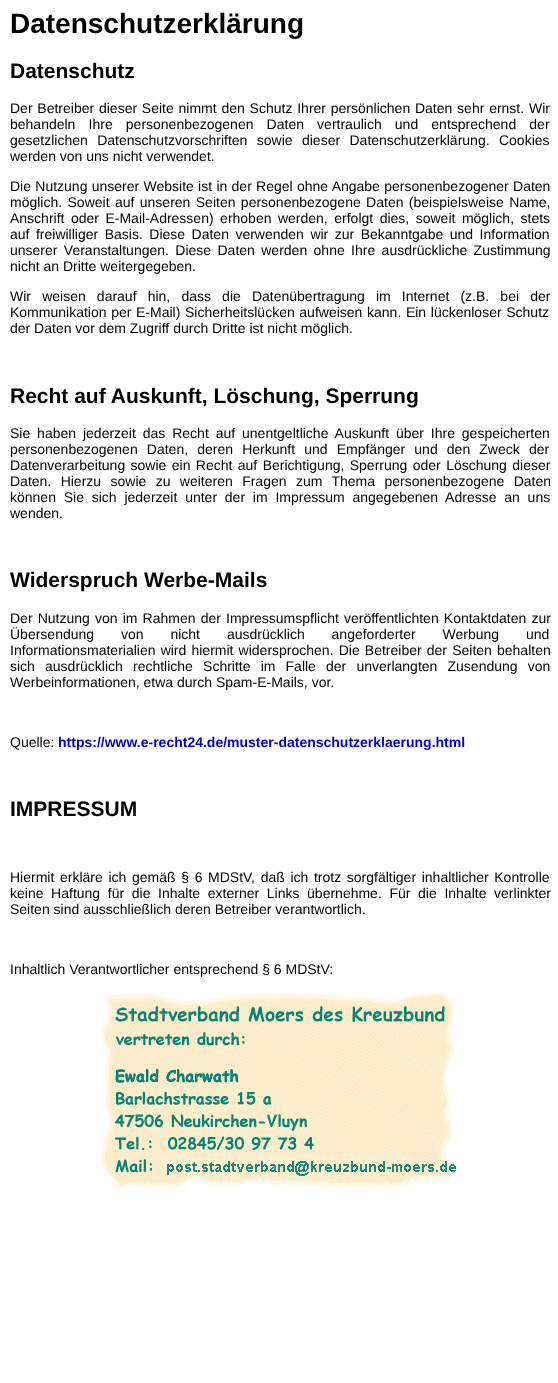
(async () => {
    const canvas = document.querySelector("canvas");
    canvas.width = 558;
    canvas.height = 1383;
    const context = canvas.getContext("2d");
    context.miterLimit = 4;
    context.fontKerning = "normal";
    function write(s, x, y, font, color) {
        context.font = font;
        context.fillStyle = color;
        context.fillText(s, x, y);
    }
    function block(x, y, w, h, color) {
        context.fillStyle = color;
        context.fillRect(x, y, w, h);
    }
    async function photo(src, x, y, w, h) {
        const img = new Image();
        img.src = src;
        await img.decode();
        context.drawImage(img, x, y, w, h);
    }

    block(0, 0, 558, 1383, "rgb(255, 255, 255)");
    write("Datenschutzerklärung", 10, 33, "bold 28px Liberation Sans", "rgb(0, 0, 0)");
    write("Datenschutz", 10, 78, "bold 21px Liberation Sans", "rgb(0, 0, 0)");
    context.wordSpacing = "0.9px";
    write("Der Betreiber dieser Seite nimmt den Schutz Ihrer persönlichen Daten sehr ernst. Wir", 10, 113, "14px Liberation Sans", "rgb(0, 0, 0)");
    context.wordSpacing = "9.25px";
    write("behandeln Ihre personenbezogenen Daten vertraulich und entsprechend der", 10, 129, "14px Liberation Sans", "rgb(0, 0, 0)");
    context.wordSpacing = "5.5px";
    write("gesetzlichen Datenschutzvorschriften sowie dieser Datenschutzerklärung. Cookies", 10, 145, "14px Liberation Sans", "rgb(0, 0, 0)");
    context.wordSpacing = "0px";
    write("werden von uns nicht verwendet.", 10, 161, "14px Liberation Sans", "rgb(0, 0, 0)");
    context.wordSpacing = "0.4px";
    write("Die Nutzung unserer Website ist in der Regel ohne Angabe personenbezogener Daten", 10, 191, "14px Liberation Sans", "rgb(0, 0, 0)");
    context.wordSpacing = "1.5px";
    write("möglich. Soweit auf unseren Seiten personenbezogene Daten (beispielsweise Name,", 10, 207, "14px Liberation Sans", "rgb(0, 0, 0)");
    context.wordSpacing = "2.6px";
    write("Anschrift oder E-Mail-Adressen) erhoben werden, erfolgt dies, soweit möglich, stets", 10, 223, "14px Liberation Sans", "rgb(0, 0, 0)");
    write("auf freiwilliger Basis. Diese Daten verwenden wir zur Bekanntgabe und Information", 10, 239, "14px Liberation Sans", "rgb(0, 0, 0)");
    context.wordSpacing = "2.5px";
    write("unserer Veranstaltungen. Diese Daten werden ohne Ihre ausdrückliche Zustimmung", 10, 255, "14px Liberation Sans", "rgb(0, 0, 0)");
    context.wordSpacing = "0px";
    write("nicht an Dritte weitergegeben.", 10, 271, "14px Liberation Sans", "rgb(0, 0, 0)");
    context.wordSpacing = "7.25px";
    write("Wir weisen darauf hin, dass die Datenübertragung im Internet (z.B. bei der", 10, 301, "14px Liberation Sans", "rgb(0, 0, 0)");
    context.wordSpacing = "0.75px";
    write("Kommunikation per E-Mail) Sicherheitslücken aufweisen kann. Ein lückenloser Schutz", 10, 317, "14px Liberation Sans", "rgb(0, 0, 0)");
    context.wordSpacing = "0px";
    write("der Daten vor dem Zugriff durch Dritte ist nicht möglich.", 10, 333, "14px Liberation Sans", "rgb(0, 0, 0)");
    write("Recht auf Auskunft, Löschung, Sperrung", 10, 403, "bold 21px Liberation Sans", "rgb(0, 0, 0)");
    context.wordSpacing = "3px";
    write("Sie haben jederzeit das Recht auf unentgeltliche Auskunft über Ihre gespeicherten", 10, 438, "14px Liberation Sans", "rgb(0, 0, 0)");
    context.wordSpacing = "5.25px";
    write("personenbezogenen Daten, deren Herkunft und Empfänger und den Zweck der", 10, 454, "14px Liberation Sans", "rgb(0, 0, 0)");
    context.wordSpacing = "1.5px";
    write("Datenverarbeitung sowie ein Recht auf Berichtigung, Sperrung oder Löschung dieser", 10, 470, "14px Liberation Sans", "rgb(0, 0, 0)");
    context.wordSpacing = "5.5px";
    write("Daten. Hierzu sowie zu weiteren Fragen zum Thema personenbezogene Daten", 10, 486, "14px Liberation Sans", "rgb(0, 0, 0)");
    context.wordSpacing = "3.9px";
    write("können Sie sich jederzeit unter der im Impressum angegebenen Adresse an uns", 10, 502, "14px Liberation Sans", "rgb(0, 0, 0)");
    context.wordSpacing = "0px";
    write("wenden.", 10, 518, "14px Liberation Sans", "rgb(0, 0, 0)");
    write("Widerspruch Werbe-Mails", 10, 587, "bold 21px Liberation Sans", "rgb(0, 0, 0)");
    context.wordSpacing = "1.25px";
    write("Der Nutzung von im Rahmen der Impressumspflicht veröffentlichten Kontaktdaten zur", 10, 623, "14px Liberation Sans", "rgb(0, 0, 0)");
    context.wordSpacing = "23px";
    write("Übersendung von nicht ausdrücklich angeforderter Werbung und", 10, 639, "14px Liberation Sans", "rgb(0, 0, 0)");
    context.wordSpacing = "1.25px";
    write("Informationsmaterialien wird hiermit widersprochen. Die Betreiber der Seiten behalten", 10, 655, "14px Liberation Sans", "rgb(0, 0, 0)");
    context.wordSpacing = "6.25px";
    write("sich ausdrücklich rechtliche Schritte im Falle der unverlangten Zusendung von", 10, 671, "14px Liberation Sans", "rgb(0, 0, 0)");
    context.wordSpacing = "0px";
    write("Werbeinformationen, etwa durch Spam-E-Mails, vor.", 10, 687, "14px Liberation Sans", "rgb(0, 0, 0)");
    write("Quelle:", 10, 747, "14px Liberation Sans", "rgb(0, 0, 0)");
    write("https://www.e-recht24.de/muster-datenschutzerklaerung.html", 58, 747, "bold 14px Liberation Sans", "rgb(0, 0, 204)");
    write("IMPRESSUM", 10, 816, "bold 21px Liberation Sans", "rgb(0, 0, 0)");
    context.wordSpacing = "1.75px";
    write("Hiermit erkläre ich", 10, 882, "14px Liberation Sans", "rgb(0, 0, 0)");
    write("gemäß § 6 MDStV, daß ich trotz sorgfältiger inhaltlicher Kontrolle", 132, 882, "14px Liberation Sans", "rgb(0, 0, 0)");
    context.wordSpacing = "3.75px";
    write("keine Haftung für die Inhalte externer Links übernehme. Für die Inhalte verlinkter", 10, 898, "14px Liberation Sans", "rgb(0, 0, 0)");
    context.wordSpacing = "0px";
    write("Seiten sind ausschließlich deren Betreiber verantwortlich.", 10, 914, "14px Liberation Sans", "rgb(0, 0, 0)");
    write("Inhaltlich Verantwortlicher entsprechend § 6 MDStV:", 10, 974, "14px Liberation Sans", "rgb(0, 0, 0)");
    await photo("media/1.png", 98, 991, 364, 202);
})();
